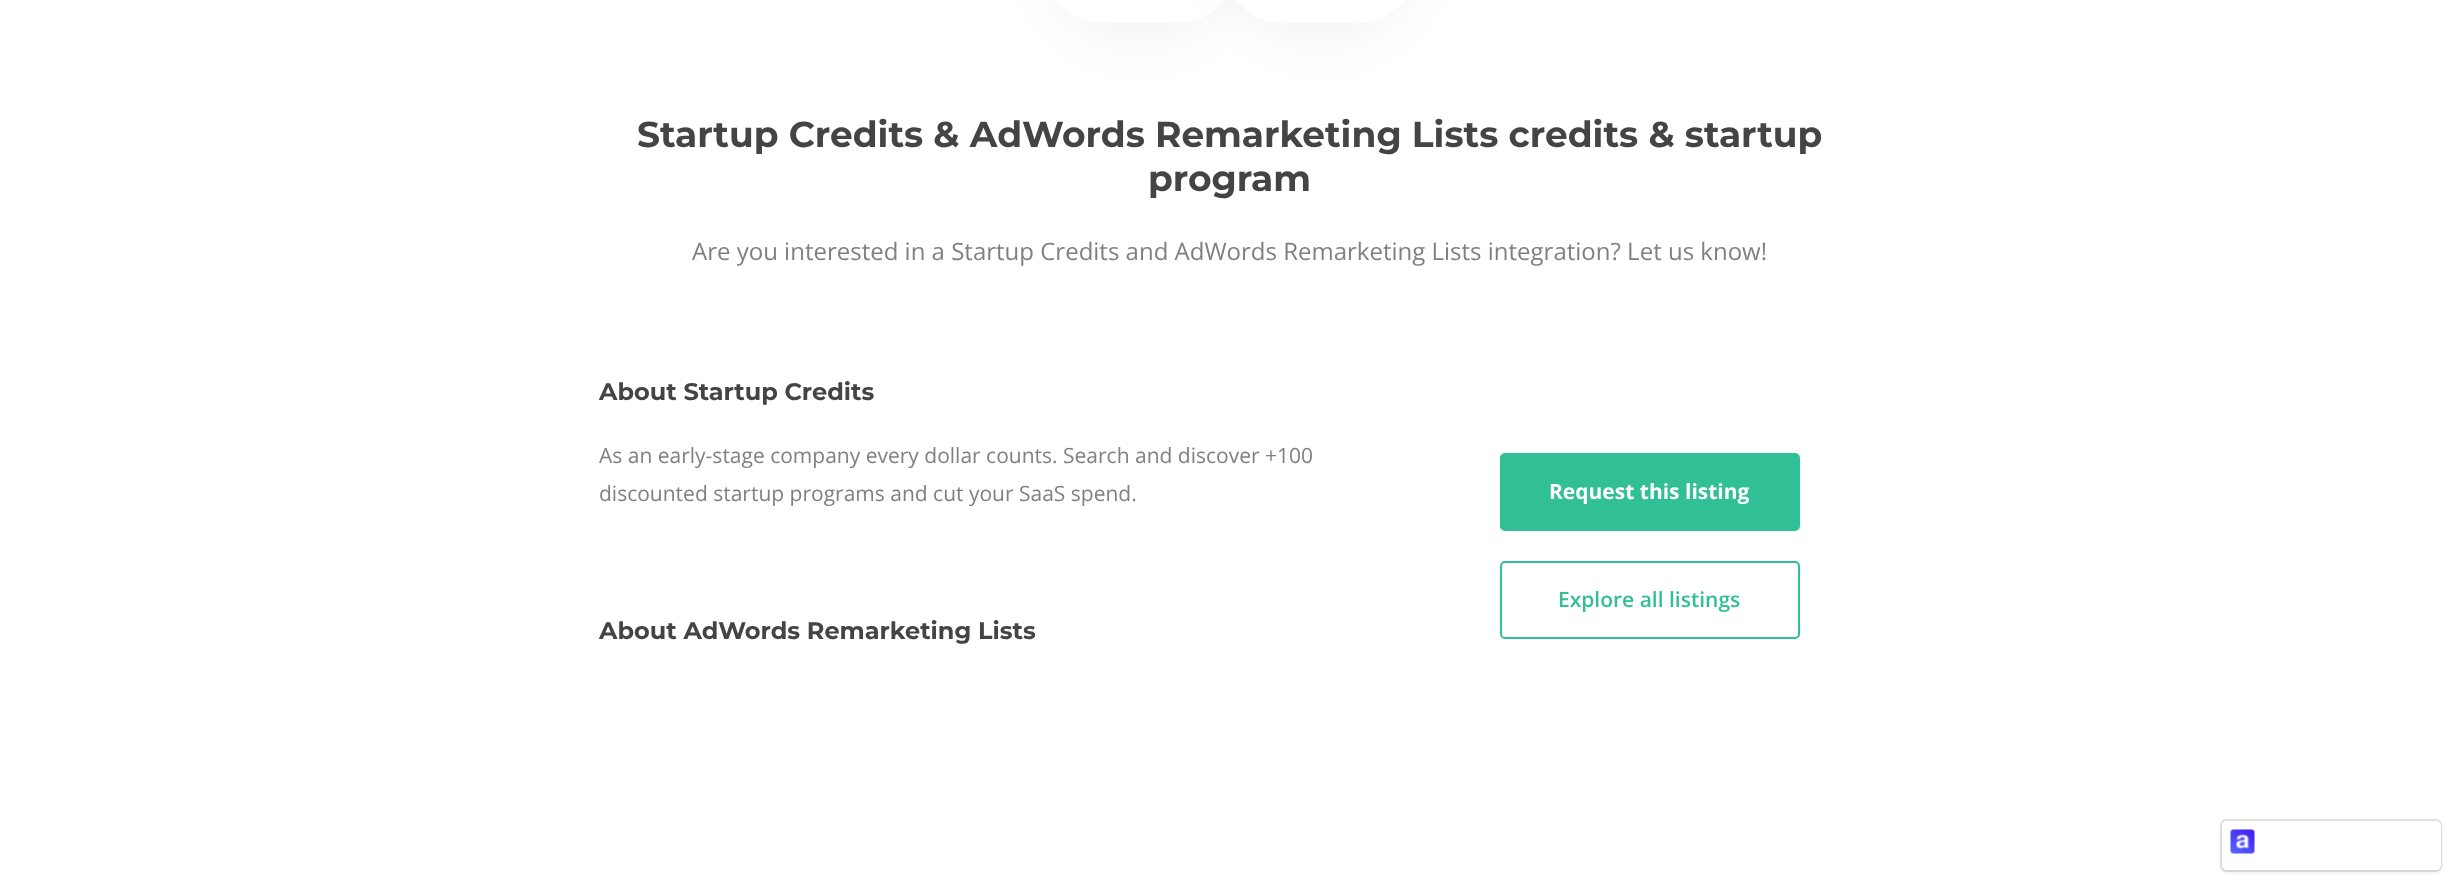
(async () => {
    const canvas = document.querySelector("canvas");
    canvas.width = 2458;
    canvas.height = 887;
    const context = canvas.getContext("2d");
    context.miterLimit = 4;
    context.fontKerning = "normal";
    function write(s, x, y, font, color) {
        context.font = font;
        context.fillStyle = color;
        context.fillText(s, x, y);
    }
    function block(x, y, w, h, color) {
        context.fillStyle = color;
        context.fillRect(x, y, w, h);
    }
    function card(x, y, w, h, r, color) {
        context.fillStyle = color;
        context.beginPath();
        context.roundRect(x, y, w, h, r);
        context.fill();
    }
    async function photo(src, x, y, w, h) {
        const img = new Image();
        img.src = src;
        await img.decode();
        context.drawImage(img, x, y, w, h);
    }

    block(0, 0, 2458, 887, "rgb(255, 255, 255)");
    context.fillStyle = "rgba(0, 0, 0, 0.05)";
    context.filter = "blur(27px)";
    context.beginPath();
    context.roundRect(1043, -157, 195, 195, 97.5);
    context.fill();
    context.filter = "none";
    card(1043, -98, 195, 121, 97.5, "rgb(255, 255, 255)");
    context.fillStyle = "rgba(0, 0, 0, 0.05)";
    context.filter = "blur(27px)";
    context.beginPath();
    context.roundRect(1223, -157, 195, 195, 97.5);
    context.fill();
    context.filter = "none";
    card(1223, -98, 195, 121, 97.5, "rgb(255, 255, 255)");
    write("Startup Credits & AdWords Remarketing Lists credits & startup", 637, 147, "bold 36px Montserrat", "rgb(68, 68, 68)");
    write("program", 1148, 191, "bold 36px Montserrat", "rgb(68, 68, 68)");
    write("Are you interested in a Startup Credits and AdWords Remarketing Lists integration? Let us know!", 692, 260, "24px Open Sans", "rgb(128, 128, 128)");
    write("About Startup Credits", 599, 400, "bold 24px Montserrat", "rgb(68, 68, 68)");
    write("As an early-stage company every dollar counts. Search and discover +100", 599, 463, "21px Open Sans", "rgb(128, 128, 128)");
    write("discounted startup programs and cut your SaaS spend.", 599, 501, "21px Open Sans", "rgb(128, 128, 128)");
    write("About AdWords Remarketing Lists", 599, 639, "bold 24px Montserrat", "rgb(68, 68, 68)");
    context.fillStyle = "rgb(49, 191, 149)";
    context.beginPath();
    context.roundRect(1501, 454, 298, 76, 4);
    context.fill();
    context.strokeStyle = "rgb(49, 191, 149)";
    context.lineWidth = 2;
    context.stroke();
    write("Request this listing", 1549, 499, "bold 21px Open Sans", "rgb(255, 255, 255)");
    context.beginPath();
    context.roundRect(1501, 562, 298, 76, 4);
    context.stroke();
    write("Explore all listings", 1558, 607, "600 21px Open Sans", "rgb(49, 191, 149)");
    context.fillStyle = "rgba(0, 0, 0, 0.1)";
    context.filter = "blur(2px)";
    context.beginPath();
    context.roundRect(2222, 822, 219, 50, 5);
    context.fill();
    context.filter = "none";
    context.beginPath();
    context.roundRect(2221, 820, 220, 51, 5);
    context.strokeStyle = "rgba(0, 0, 0, 0.1)";
    context.stroke();
    card(2222, 821, 219, 49, 5, "rgb(255, 255, 255)");
    await photo("media/1.png", 2230, 829, 25, 25);
})();
